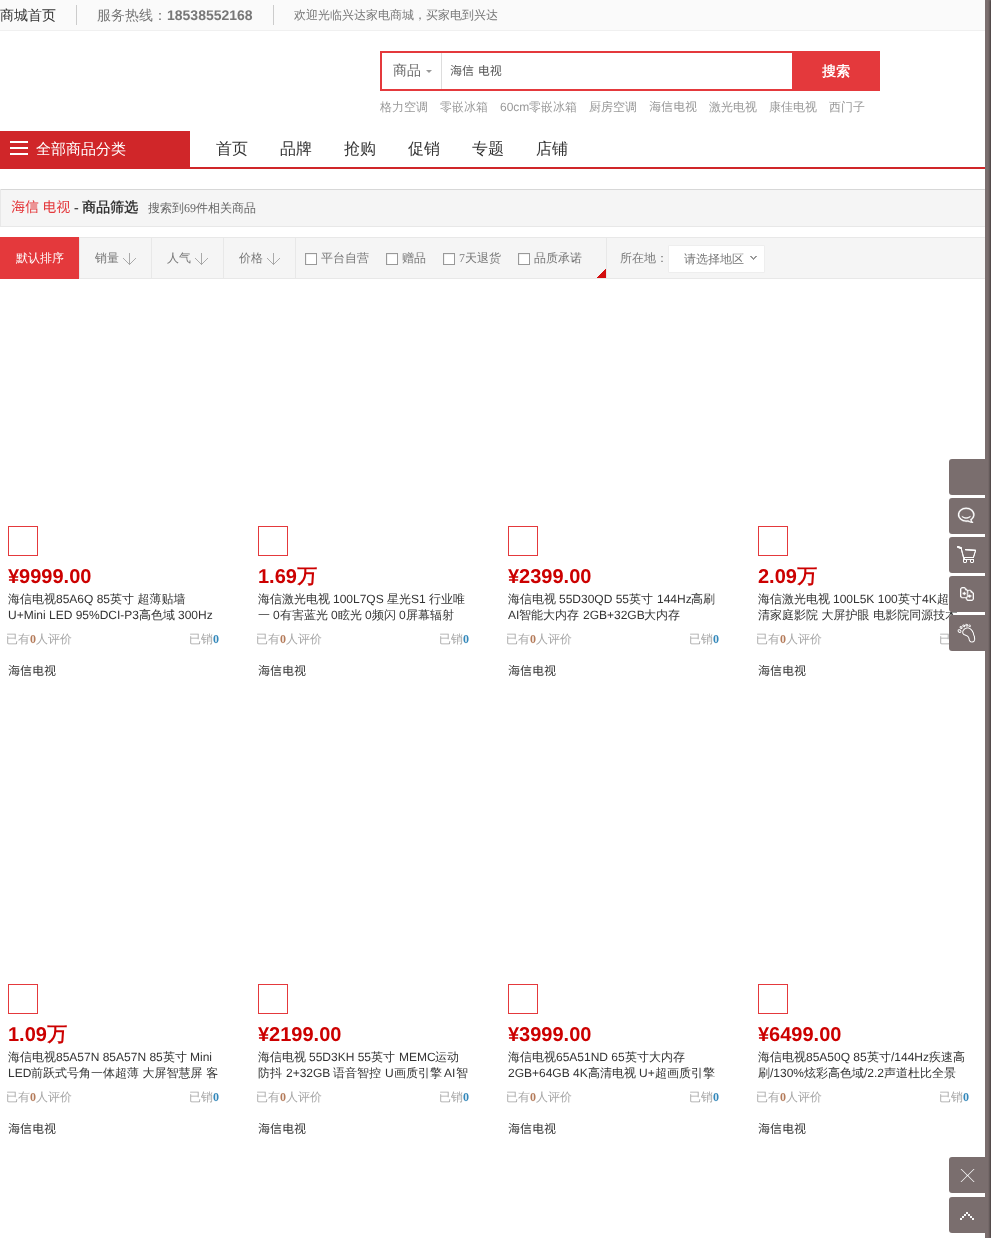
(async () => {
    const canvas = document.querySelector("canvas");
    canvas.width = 991;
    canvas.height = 1238;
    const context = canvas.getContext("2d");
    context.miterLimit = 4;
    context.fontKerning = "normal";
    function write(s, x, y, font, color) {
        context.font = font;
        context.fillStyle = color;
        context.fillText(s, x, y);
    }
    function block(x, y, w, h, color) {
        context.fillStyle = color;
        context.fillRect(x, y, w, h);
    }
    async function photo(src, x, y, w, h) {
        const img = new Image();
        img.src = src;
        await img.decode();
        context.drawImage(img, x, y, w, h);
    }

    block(0, 0, 991, 1238, "rgb(255, 255, 255)");
    block(0, 0, 985, 30, "rgb(250, 250, 250)");
    block(0, 30, 991, 1, "rgb(240, 240, 240)");
    block(76, 5, 1, 20, "rgb(204, 204, 204)");
    write("商城首页", 0, 20, "500 14px WenQuanYi Zen Hei", "rgb(51, 51, 51)");
    block(273, 5, 1, 20, "rgb(204, 204, 204)");
    write("服务热线：", 97, 20, "500 14px WenQuanYi Zen Hei", "rgb(119, 119, 119)");
    write("18538552168", 167, 20, "bold 14px Liberation Sans", "rgb(119, 119, 119)");
    write("欢迎光临兴达家电商城，买家电到兴达", 294, 19, "500 12px WenQuanYi Zen Hei", "rgb(119, 119, 119)");
    block(0, 167, 991, 2, "rgb(208, 38, 41)");
    context.strokeStyle = "rgb(232, 232, 232)";
    context.strokeRect(0.5, 189.5, 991, 37);
    block(1, 189, 990, 1, "rgb(215, 215, 215)");
    block(80, 238, 905, 40, "rgb(245, 245, 245)");
    context.strokeRect(0.5, 237.5, 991, 41);
    block(985, 0, 6, 1238, "rgb(122, 110, 110)");
    context.fillStyle = "rgba(0, 0, 0, 0.25)";
    context.filter = "blur(1px)";
    context.beginPath();
    context.rect(990, 0, 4, 1238);
    context.fill();
    context.filter = "none";
    context.fillStyle = "rgb(122, 110, 110)";
    context.beginPath();
    context.roundRect(949, 459, 36, 36, [3, 0, 0, 3]);
    context.fill();
    context.fillStyle = "rgba(0, 0, 0, 0.25)";
    context.filter = "blur(1px)";
    context.beginPath();
    context.rect(990, 0, 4, 1238);
    context.fill();
    context.filter = "none";
    context.fillStyle = "rgb(122, 110, 110)";
    context.beginPath();
    context.roundRect(949, 498, 36, 36, [3, 0, 0, 3]);
    context.fill();
    await photo("media/1.png", 957, 507, 18, 16);
    context.beginPath();
    context.roundRect(949, 537, 36, 36, [3, 0, 0, 3]);
    context.fill();
    await photo("media/2.png", 957, 546, 19, 17);
    write("清家庭影院 大屏护眼 电影院同源技术", 758, 619, "500 12px WenQuanYi Zen Hei", "rgb(51, 51, 51)");
    context.fillStyle = "rgb(122, 110, 110)";
    context.beginPath();
    context.roundRect(949, 576, 36, 36, [3, 0, 0, 3]);
    context.fill();
    await photo("media/3.png", 960, 587, 14, 14);
    write("已", 939, 643, "500 12px WenQuanYi Zen Hei", "rgb(167, 167, 167)");
    context.fillStyle = "rgb(122, 110, 110)";
    context.beginPath();
    context.roundRect(949, 615, 36, 36, [3, 0, 0, 3]);
    context.fill();
    await photo("media/4.png", 957, 623, 19, 20);
    context.beginPath();
    context.roundRect(949, 1157, 36, 36, [3, 0, 0, 3]);
    context.fill();
    await photo("media/5.png", 960, 1169, 15, 13);
    context.beginPath();
    context.roundRect(949, 1197, 36, 36, [3, 0, 0, 3]);
    context.fill();
    await photo("media/6.png", 960, 1212, 14, 8);
    block(380, 51, 62, 2, "rgb(228, 57, 60)");
    block(380, 89, 62, 2, "rgb(228, 57, 60)");
    block(380, 51, 2, 40, "rgb(228, 57, 60)");
    block(441, 53, 1, 36, "rgb(221, 221, 221)");
    write("商品", 393, 75, "500 14px WenQuanYi Zen Hei", "rgb(102, 102, 102)");
    context.fillStyle = "rgb(153, 153, 153)";
    context.beginPath();
    context.moveTo(426, 70);
    context.lineTo(432, 70);
    context.lineTo(429, 73);
    context.closePath();
    context.fill();
    block(442, 51, 438, 40, "rgb(228, 57, 60)");
    block(442, 53, 350, 36, "rgb(255, 255, 255)");
    context.wordSpacing = "1px";
    write("海信 电视", 450, 75, "12px Noto Sans CJK SC", "rgb(85, 85, 85)");
    context.wordSpacing = "0px";
    write("搜索", 822, 76, "bold 14px WenQuanYi Zen Hei", "rgb(255, 255, 255)");
    write("格力空调", 380, 111, "500 12px WenQuanYi Zen Hei", "rgb(153, 153, 153)");
    write("零嵌冰箱", 440, 111, "500 12px WenQuanYi Zen Hei", "rgb(153, 153, 153)");
    write("60cm", 500, 111, "12px Liberation Sans", "rgb(153, 153, 153)");
    write("零嵌冰箱", 529, 111, "500 12px WenQuanYi Zen Hei", "rgb(153, 153, 153)");
    write("厨房空调", 589, 111, "500 12px WenQuanYi Zen Hei", "rgb(153, 153, 153)");
    write("海信电视", 649, 111, "12px Noto Sans CJK SC", "rgb(153, 153, 153)");
    write("激光电视", 709, 111, "500 12px WenQuanYi Zen Hei", "rgb(153, 153, 153)");
    write("康佳电视", 769, 111, "500 12px WenQuanYi Zen Hei", "rgb(153, 153, 153)");
    write("西门子", 829, 111, "500 12px WenQuanYi Zen Hei", "rgb(153, 153, 153)");
    block(0, 131, 190, 36, "rgb(208, 38, 41)");
    await photo("media/7.png", 10, 141, 18, 14);
    write("全部商品分类", 36, 154, "500 15px WenQuanYi Zen Hei", "rgb(255, 255, 255)");
    write("首页", 216, 154, "500 16px WenQuanYi Zen Hei", "rgb(51, 51, 51)");
    write("品牌", 280, 154, "500 16px WenQuanYi Zen Hei", "rgb(51, 51, 51)");
    write("抢购", 344, 154, "500 16px WenQuanYi Zen Hei", "rgb(51, 51, 51)");
    write("促销", 408, 154, "500 16px WenQuanYi Zen Hei", "rgb(51, 51, 51)");
    write("专题", 472, 154, "500 16px WenQuanYi Zen Hei", "rgb(51, 51, 51)");
    write("店铺", 536, 154, "500 16px WenQuanYi Zen Hei", "rgb(51, 51, 51)");
    block(1, 190, 984, 36, "rgb(245, 245, 245)");
    write("海信 电视", 11, 212, "14px Noto Sans CJK SC", "rgb(228, 57, 60)");
    write("-", 74, 212, "bold 14px Liberation Serif", "rgb(51, 51, 51)");
    write("商品筛选", 82, 212, "bold 14px WenQuanYi Zen Hei", "rgb(51, 51, 51)");
    write("搜索到", 148, 212, "500 12px WenQuanYi Zen Hei", "rgb(102, 102, 102)");
    write("69", 184, 212, "12px Liberation Serif", "rgb(102, 102, 102)");
    write("件相关商品", 196, 212, "500 12px WenQuanYi Zen Hei", "rgb(102, 102, 102)");
    block(0, 237, 79, 42, "rgb(228, 57, 60)");
    write("默认排序", 16, 262, "500 12px WenQuanYi Zen Hei", "rgb(255, 255, 255)");
    context.strokeRect(79.5, 237.5, 72, 41);
    write("销量", 95, 262, "500 12px WenQuanYi Zen Hei", "rgb(119, 119, 119)");
    await photo("media/8.png", 123, 253, 13, 12);
    context.strokeRect(151.5, 237.5, 72, 41);
    write("人气", 167, 262, "500 12px WenQuanYi Zen Hei", "rgb(119, 119, 119)");
    await photo("media/8.png", 195, 253, 13, 12);
    context.strokeRect(223.5, 237.5, 72, 41);
    write("价格", 239, 262, "500 12px WenQuanYi Zen Hei", "rgb(119, 119, 119)");
    await photo("media/8.png", 267, 253, 13, 12);
    block(606, 238, 1, 40, "rgb(232, 232, 232)");
    await photo("media/9.png", 305, 253, 12, 12);
    write("平台自营", 321, 262, "500 12px WenQuanYi Zen Hei", "rgb(119, 119, 119)");
    await photo("media/9.png", 386, 253, 12, 12);
    write("赠品", 402, 262, "500 12px WenQuanYi Zen Hei", "rgb(119, 119, 119)");
    await photo("media/9.png", 443, 253, 12, 12);
    write("7", 459, 262, "12px Liberation Serif", "rgb(119, 119, 119)");
    write("天退货", 465, 262, "500 12px WenQuanYi Zen Hei", "rgb(119, 119, 119)");
    await photo("media/9.png", 518, 253, 12, 12);
    write("品质承诺", 534, 262, "500 12px WenQuanYi Zen Hei", "rgb(119, 119, 119)");
    await photo("media/10.png", 597, 269, 9, 9);
    write("所在地：", 620, 262, "500 12px WenQuanYi Zen Hei", "rgb(119, 119, 119)");
    context.fillStyle = "rgb(255, 255, 255)";
    context.beginPath();
    context.rect(668.5, 245.5, 96, 27);
    context.fill();
    context.strokeStyle = "rgb(238, 238, 238)";
    context.stroke();
    write("请选择地区", 684, 263, "500 12px WenQuanYi Zen Hei", "rgb(119, 119, 119)");
    await photo("media/11.png", 750, 256, 7, 4);
    context.strokeStyle = "rgb(228, 57, 60)";
    context.strokeRect(8.5, 526.5, 29, 29);
    write("¥9999.00", 8, 583, "bold 20px Liberation Sans", "rgb(204, 0, 0)");
    write("海信电视", 8, 603, "500 12px WenQuanYi Zen Hei", "rgb(51, 51, 51)");
    write("85A6Q 85", 56, 603, "12px Liberation Sans", "rgb(51, 51, 51)");
    write("英寸 超薄贴墙", 110, 603, "500 12px WenQuanYi Zen Hei", "rgb(51, 51, 51)");
    write("U+Mini LED 95%DCI-P3", 8, 619, "12px Liberation Sans", "rgb(51, 51, 51)");
    write("高色域", 139, 619, "500 12px WenQuanYi Zen Hei", "rgb(51, 51, 51)");
    write("300Hz", 178, 619, "12px Liberation Sans", "rgb(51, 51, 51)");
    write("已有", 6, 643, "500 12px WenQuanYi Zen Hei", "rgb(167, 167, 167)");
    write("0", 30, 643, "bold 12px Liberation Serif", "rgb(181, 124, 91)");
    write("人评价", 36, 643, "500 12px WenQuanYi Zen Hei", "rgb(167, 167, 167)");
    write("已销", 189, 643, "500 12px WenQuanYi Zen Hei", "rgb(167, 167, 167)");
    write("0", 213, 643, "bold 12px Liberation Serif", "rgb(51, 136, 187)");
    write("海信电视", 8, 675, "12px Noto Sans CJK SC", "rgb(51, 51, 51)");
    context.strokeRect(258.5, 526.5, 29, 29);
    write("1.69", 258, 583, "bold 20px Liberation Sans", "rgb(204, 0, 0)");
    write("万", 297, 583, "bold 20px WenQuanYi Zen Hei", "rgb(204, 0, 0)");
    write("海信激光电视", 258, 603, "500 12px WenQuanYi Zen Hei", "rgb(51, 51, 51)");
    write("100L7QS", 333, 603, "12px Liberation Sans", "rgb(51, 51, 51)");
    write("星光", 387, 603, "500 12px WenQuanYi Zen Hei", "rgb(51, 51, 51)");
    write("S1", 411, 603, "12px Liberation Sans", "rgb(51, 51, 51)");
    write("行业唯", 429, 603, "500 12px WenQuanYi Zen Hei", "rgb(51, 51, 51)");
    write("一", 258, 619, "500 12px WenQuanYi Zen Hei", "rgb(51, 51, 51)");
    write("0", 273, 619, "12px Liberation Sans", "rgb(51, 51, 51)");
    write("有害蓝光", 280, 619, "500 12px WenQuanYi Zen Hei", "rgb(51, 51, 51)");
    write("0", 331, 619, "12px Liberation Sans", "rgb(51, 51, 51)");
    write("眩光", 338, 619, "500 12px WenQuanYi Zen Hei", "rgb(51, 51, 51)");
    write("0", 365, 619, "12px Liberation Sans", "rgb(51, 51, 51)");
    write("频闪", 372, 619, "500 12px WenQuanYi Zen Hei", "rgb(51, 51, 51)");
    write("0", 399, 619, "12px Liberation Sans", "rgb(51, 51, 51)");
    write("屏幕辐射", 406, 619, "500 12px WenQuanYi Zen Hei", "rgb(51, 51, 51)");
    write("已有", 256, 643, "500 12px WenQuanYi Zen Hei", "rgb(167, 167, 167)");
    write("0", 280, 643, "bold 12px Liberation Serif", "rgb(181, 124, 91)");
    write("人评价", 286, 643, "500 12px WenQuanYi Zen Hei", "rgb(167, 167, 167)");
    write("已销", 439, 643, "500 12px WenQuanYi Zen Hei", "rgb(167, 167, 167)");
    write("0", 463, 643, "bold 12px Liberation Serif", "rgb(51, 136, 187)");
    write("海信电视", 258, 675, "12px Noto Sans CJK SC", "rgb(51, 51, 51)");
    context.strokeRect(508.5, 526.5, 29, 29);
    write("¥2399.00", 508, 583, "bold 20px Liberation Sans", "rgb(204, 0, 0)");
    write("海信电视", 508, 603, "500 12px WenQuanYi Zen Hei", "rgb(51, 51, 51)");
    write("55D30QD 55", 559, 603, "12px Liberation Sans", "rgb(51, 51, 51)");
    write("英寸", 629, 603, "500 12px WenQuanYi Zen Hei", "rgb(51, 51, 51)");
    write("144Hz", 657, 603, "12px Liberation Sans", "rgb(51, 51, 51)");
    write("高刷", 691, 603, "500 12px WenQuanYi Zen Hei", "rgb(51, 51, 51)");
    write("AI", 508, 619, "12px Liberation Sans", "rgb(51, 51, 51)");
    write("智能大内存", 519, 619, "500 12px WenQuanYi Zen Hei", "rgb(51, 51, 51)");
    write("2GB+32GB", 583, 619, "12px Liberation Sans", "rgb(51, 51, 51)");
    write("大内存", 644, 619, "500 12px WenQuanYi Zen Hei", "rgb(51, 51, 51)");
    write("已有", 506, 643, "500 12px WenQuanYi Zen Hei", "rgb(167, 167, 167)");
    write("0", 530, 643, "bold 12px Liberation Serif", "rgb(181, 124, 91)");
    write("人评价", 536, 643, "500 12px WenQuanYi Zen Hei", "rgb(167, 167, 167)");
    write("已销", 689, 643, "500 12px WenQuanYi Zen Hei", "rgb(167, 167, 167)");
    write("0", 713, 643, "bold 12px Liberation Serif", "rgb(51, 136, 187)");
    write("海信电视", 508, 675, "12px Noto Sans CJK SC", "rgb(51, 51, 51)");
    context.strokeRect(758.5, 526.5, 29, 29);
    write("2.09", 758, 583, "bold 20px Liberation Sans", "rgb(204, 0, 0)");
    write("万", 797, 583, "bold 20px WenQuanYi Zen Hei", "rgb(204, 0, 0)");
    write("海信激光电视", 758, 603, "500 12px WenQuanYi Zen Hei", "rgb(51, 51, 51)");
    write("100L5K 100", 833, 603, "12px Liberation Sans", "rgb(51, 51, 51)");
    write("英寸", 898, 603, "500 12px WenQuanYi Zen Hei", "rgb(51, 51, 51)");
    write("4K", 922, 603, "12px Liberation Sans", "rgb(51, 51, 51)");
    write("超", 937, 603, "500 12px WenQuanYi Zen Hei", "rgb(51, 51, 51)");
    write("已有", 756, 643, "500 12px WenQuanYi Zen Hei", "rgb(167, 167, 167)");
    write("0", 780, 643, "bold 12px Liberation Serif", "rgb(181, 124, 91)");
    write("人评价", 786, 643, "500 12px WenQuanYi Zen Hei", "rgb(167, 167, 167)");
    write("海信电视", 758, 675, "12px Noto Sans CJK SC", "rgb(51, 51, 51)");
    context.strokeRect(8.5, 984.5, 29, 29);
    write("1.09", 8, 1041, "bold 20px Liberation Sans", "rgb(204, 0, 0)");
    write("万", 47, 1041, "bold 20px WenQuanYi Zen Hei", "rgb(204, 0, 0)");
    write("海信电视", 8, 1061, "500 12px WenQuanYi Zen Hei", "rgb(51, 51, 51)");
    write("85A57N 85A57N 85", 56, 1061, "12px Liberation Sans", "rgb(51, 51, 51)");
    write("英寸", 163, 1061, "500 12px WenQuanYi Zen Hei", "rgb(51, 51, 51)");
    write("Mini", 190, 1061, "12px Liberation Sans", "rgb(51, 51, 51)");
    write("LED", 8, 1077, "12px Liberation Sans", "rgb(51, 51, 51)");
    write("前跃式号角一体超薄 大屏智慧屏 客", 31, 1077, "500 12px WenQuanYi Zen Hei", "rgb(51, 51, 51)");
    write("已有", 6, 1101, "500 12px WenQuanYi Zen Hei", "rgb(167, 167, 167)");
    write("0", 30, 1101, "bold 12px Liberation Serif", "rgb(181, 124, 91)");
    write("人评价", 36, 1101, "500 12px WenQuanYi Zen Hei", "rgb(167, 167, 167)");
    write("已销", 189, 1101, "500 12px WenQuanYi Zen Hei", "rgb(167, 167, 167)");
    write("0", 213, 1101, "bold 12px Liberation Serif", "rgb(51, 136, 187)");
    write("海信电视", 8, 1133, "12px Noto Sans CJK SC", "rgb(51, 51, 51)");
    context.strokeRect(258.5, 984.5, 29, 29);
    write("¥2199.00", 258, 1041, "bold 20px Liberation Sans", "rgb(204, 0, 0)");
    write("海信电视", 258, 1061, "500 12px WenQuanYi Zen Hei", "rgb(51, 51, 51)");
    write("55D3KH 55", 309, 1061, "12px Liberation Sans", "rgb(51, 51, 51)");
    write("英寸", 371, 1061, "500 12px WenQuanYi Zen Hei", "rgb(51, 51, 51)");
    write("MEMC", 399, 1061, "12px Liberation Sans", "rgb(51, 51, 51)");
    write("运动", 435, 1061, "500 12px WenQuanYi Zen Hei", "rgb(51, 51, 51)");
    write("防抖", 258, 1077, "500 12px WenQuanYi Zen Hei", "rgb(51, 51, 51)");
    write("2+32GB", 286, 1077, "12px Liberation Sans", "rgb(51, 51, 51)");
    write("语音智控", 333, 1077, "500 12px WenQuanYi Zen Hei", "rgb(51, 51, 51)");
    write("U", 385, 1077, "12px Liberation Sans", "rgb(51, 51, 51)");
    write("画质引擎", 394, 1077, "500 12px WenQuanYi Zen Hei", "rgb(51, 51, 51)");
    write("AI", 444, 1077, "12px Liberation Sans", "rgb(51, 51, 51)");
    write("智", 456, 1077, "500 12px WenQuanYi Zen Hei", "rgb(51, 51, 51)");
    write("已有", 256, 1101, "500 12px WenQuanYi Zen Hei", "rgb(167, 167, 167)");
    write("0", 280, 1101, "bold 12px Liberation Serif", "rgb(181, 124, 91)");
    write("人评价", 286, 1101, "500 12px WenQuanYi Zen Hei", "rgb(167, 167, 167)");
    write("已销", 439, 1101, "500 12px WenQuanYi Zen Hei", "rgb(167, 167, 167)");
    write("0", 463, 1101, "bold 12px Liberation Serif", "rgb(51, 136, 187)");
    write("海信电视", 258, 1133, "12px Noto Sans CJK SC", "rgb(51, 51, 51)");
    context.strokeRect(508.5, 984.5, 29, 29);
    write("¥3999.00", 508, 1041, "bold 20px Liberation Sans", "rgb(204, 0, 0)");
    write("海信电视", 508, 1061, "500 12px WenQuanYi Zen Hei", "rgb(51, 51, 51)");
    write("65A51ND 65", 556, 1061, "12px Liberation Sans", "rgb(51, 51, 51)");
    write("英寸大内存", 625, 1061, "500 12px WenQuanYi Zen Hei", "rgb(51, 51, 51)");
    write("2GB+64GB 4K", 508, 1077, "12px Liberation Sans", "rgb(51, 51, 51)");
    write("高清电视", 588, 1077, "500 12px WenQuanYi Zen Hei", "rgb(51, 51, 51)");
    write("U+", 639, 1077, "12px Liberation Sans", "rgb(51, 51, 51)");
    write("超画质引擎", 655, 1077, "500 12px WenQuanYi Zen Hei", "rgb(51, 51, 51)");
    write("已有", 506, 1101, "500 12px WenQuanYi Zen Hei", "rgb(167, 167, 167)");
    write("0", 530, 1101, "bold 12px Liberation Serif", "rgb(181, 124, 91)");
    write("人评价", 536, 1101, "500 12px WenQuanYi Zen Hei", "rgb(167, 167, 167)");
    write("已销", 689, 1101, "500 12px WenQuanYi Zen Hei", "rgb(167, 167, 167)");
    write("0", 713, 1101, "bold 12px Liberation Serif", "rgb(51, 136, 187)");
    write("海信电视", 508, 1133, "12px Noto Sans CJK SC", "rgb(51, 51, 51)");
    context.strokeRect(758.5, 984.5, 29, 29);
    write("¥6499.00", 758, 1041, "bold 20px Liberation Sans", "rgb(204, 0, 0)");
    write("海信电视", 758, 1061, "500 12px WenQuanYi Zen Hei", "rgb(51, 51, 51)");
    write("85A50Q 85", 806, 1061, "12px Liberation Sans", "rgb(51, 51, 51)");
    write("英寸", 867, 1061, "500 12px WenQuanYi Zen Hei", "rgb(51, 51, 51)");
    write("/144Hz", 891, 1061, "12px Liberation Sans", "rgb(51, 51, 51)");
    write("疾速高", 929, 1061, "500 12px WenQuanYi Zen Hei", "rgb(51, 51, 51)");
    write("刷", 758, 1077, "500 12px WenQuanYi Zen Hei", "rgb(51, 51, 51)");
    write("/130%", 770, 1077, "12px Liberation Sans", "rgb(51, 51, 51)");
    write("炫彩高色域", 804, 1077, "500 12px WenQuanYi Zen Hei", "rgb(51, 51, 51)");
    write("/2.2", 864, 1077, "12px Liberation Sans", "rgb(51, 51, 51)");
    write("声道杜比全景", 884, 1077, "500 12px WenQuanYi Zen Hei", "rgb(51, 51, 51)");
    write("已有", 756, 1101, "500 12px WenQuanYi Zen Hei", "rgb(167, 167, 167)");
    write("0", 780, 1101, "bold 12px Liberation Serif", "rgb(181, 124, 91)");
    write("人评价", 786, 1101, "500 12px WenQuanYi Zen Hei", "rgb(167, 167, 167)");
    write("已销", 939, 1101, "500 12px WenQuanYi Zen Hei", "rgb(167, 167, 167)");
    write("0", 963, 1101, "bold 12px Liberation Serif", "rgb(51, 136, 187)");
    write("海信电视", 758, 1133, "12px Noto Sans CJK SC", "rgb(51, 51, 51)");
})();
